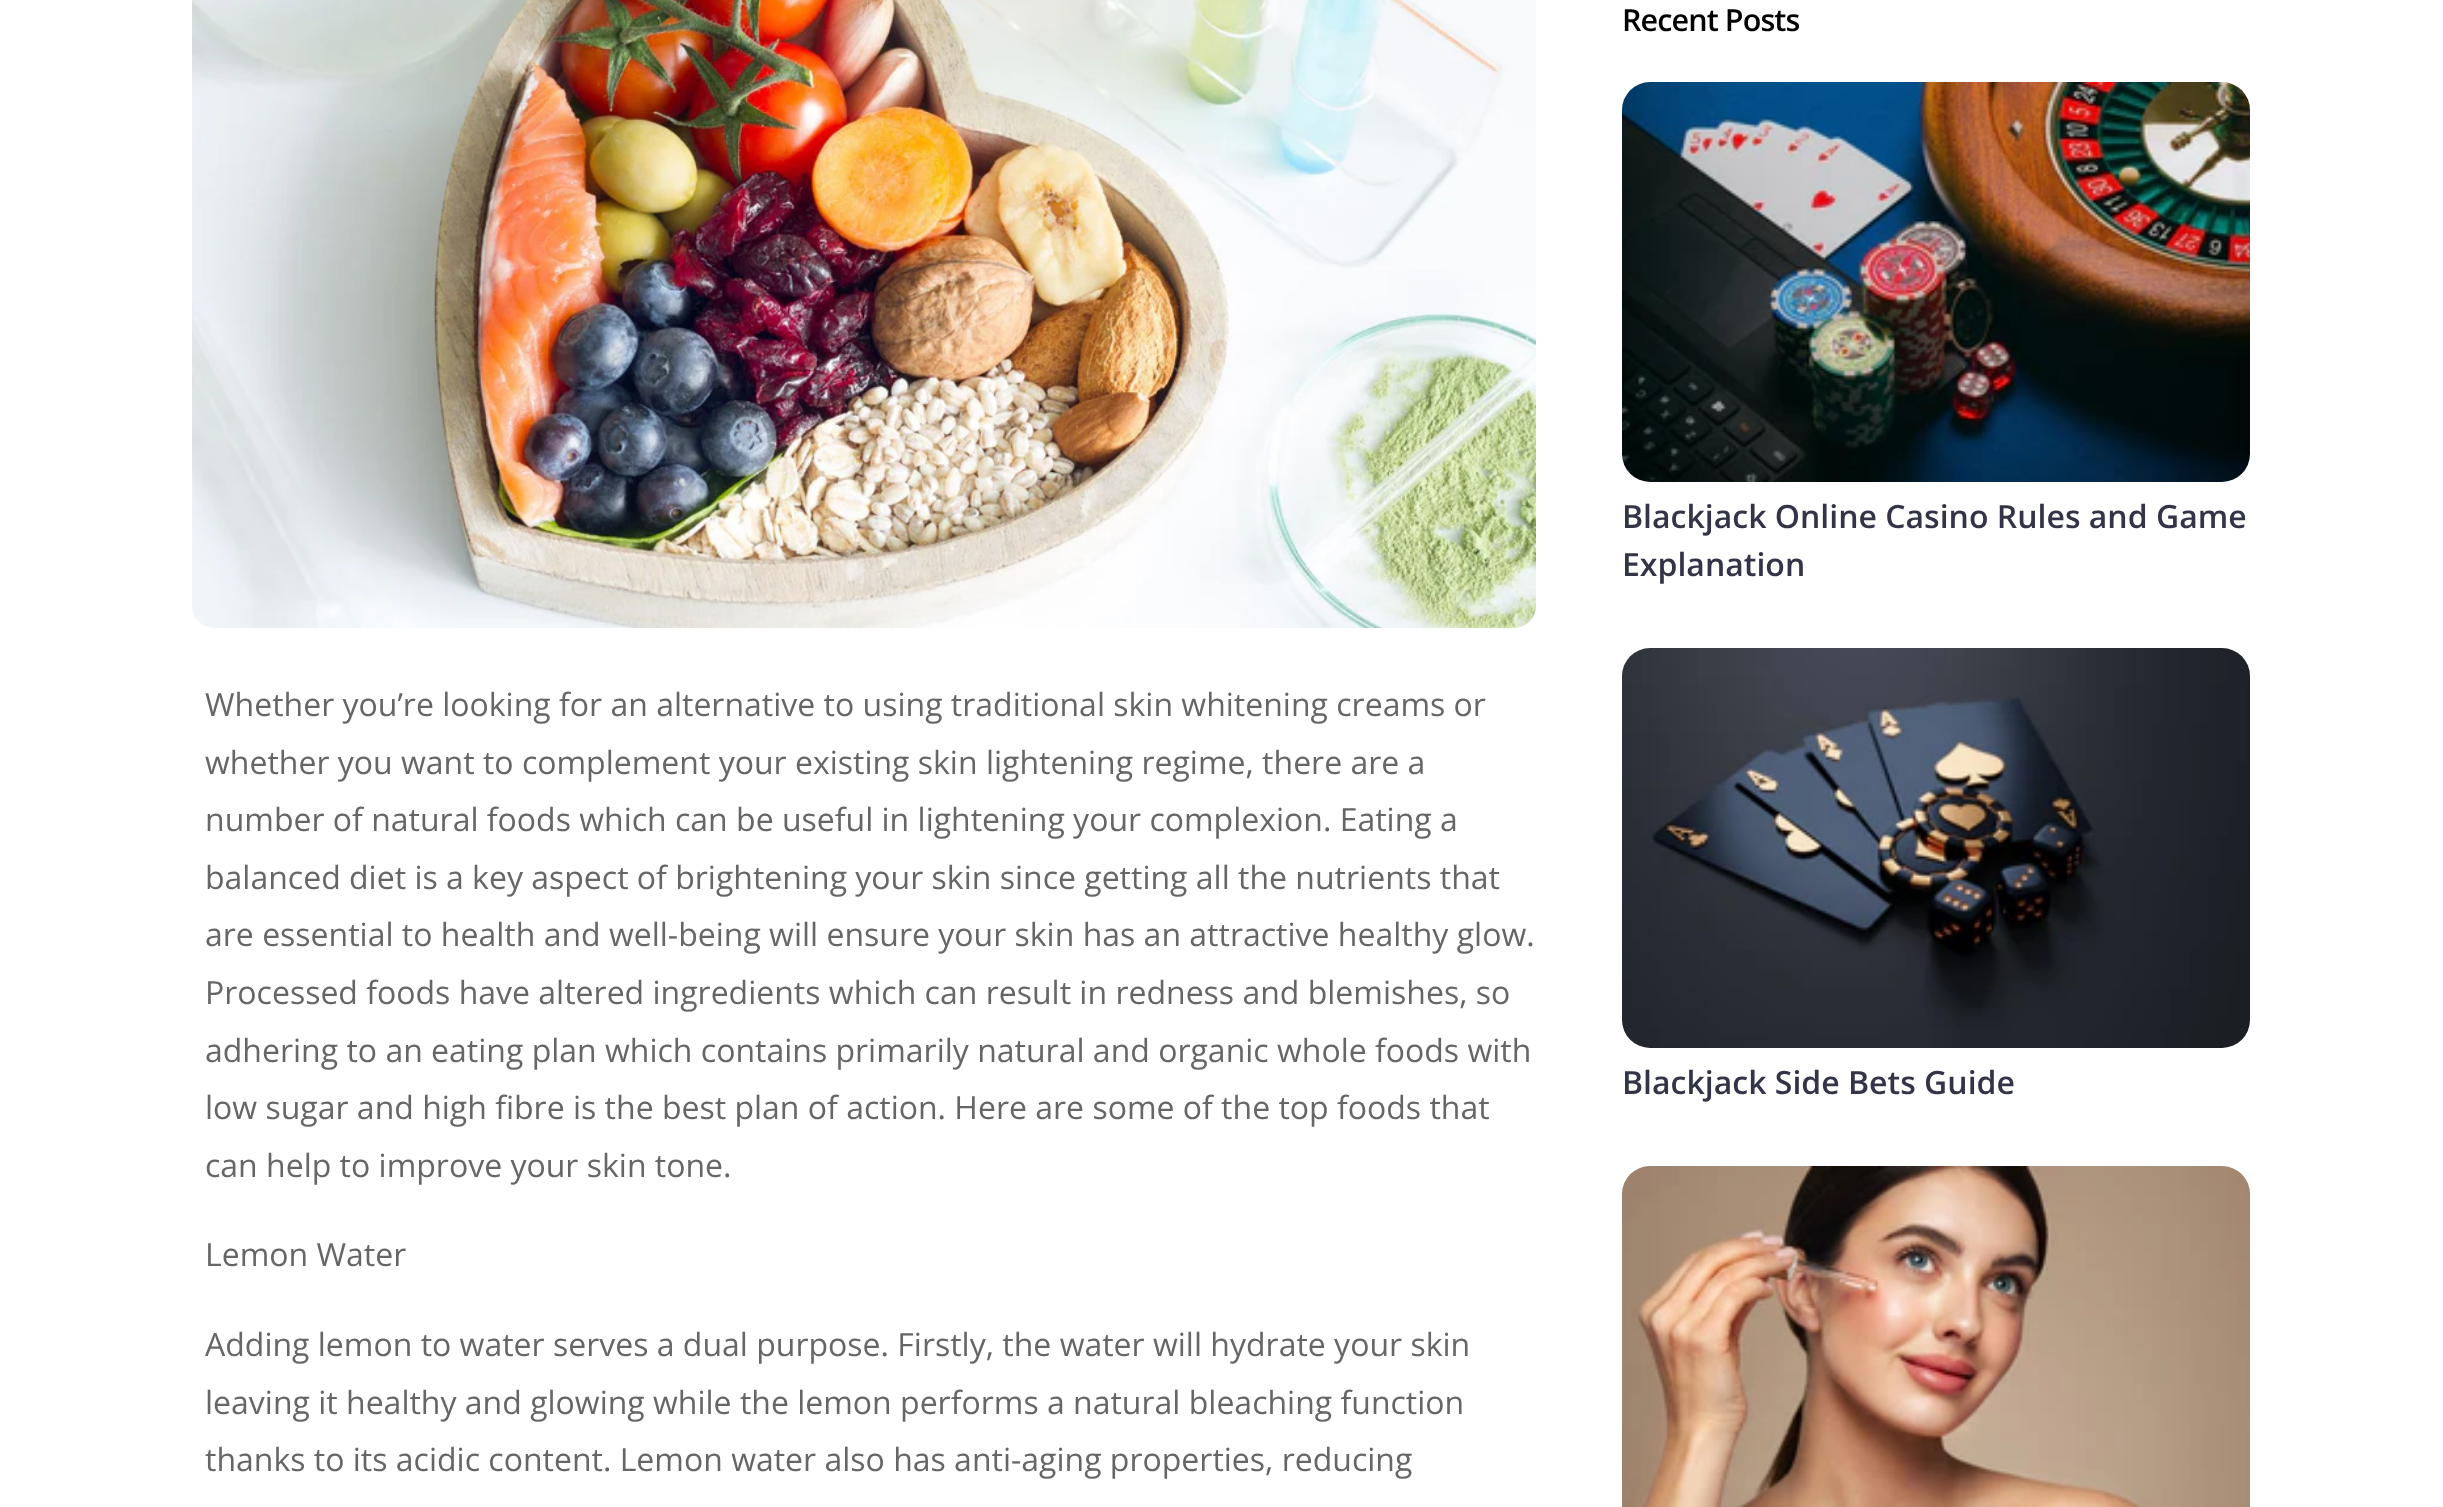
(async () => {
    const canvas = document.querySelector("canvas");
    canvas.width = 2443;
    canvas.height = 1507;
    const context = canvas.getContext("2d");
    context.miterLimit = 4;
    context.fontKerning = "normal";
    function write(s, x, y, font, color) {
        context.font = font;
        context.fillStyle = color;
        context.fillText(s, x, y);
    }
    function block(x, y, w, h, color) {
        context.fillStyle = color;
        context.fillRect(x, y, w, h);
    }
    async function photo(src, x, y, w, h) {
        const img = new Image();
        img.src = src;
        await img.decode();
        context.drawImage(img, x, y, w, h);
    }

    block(0, 0, 2443, 1507, "rgb(255, 255, 255)");
    await photo("media/1.png", 192, 0, 1344, 628);
    write("Whether you’re looking for an alternative to using traditional skin whitening creams or", 205, 716, "32px Open Sans", "rgb(102, 102, 102)");
    write("whether you want to complement your existing skin lightening regime, there are a", 205, 774, "32px Open Sans", "rgb(102, 102, 102)");
    write("number of natural foods which can be useful in lightening your complexion. Eating a", 205, 831, "32px Open Sans", "rgb(102, 102, 102)");
    write("balanced diet is a key aspect of brightening your skin since getting all the nutrients that", 205, 889, "32px Open Sans", "rgb(102, 102, 102)");
    write("are essential to health and well-being will ensure your skin has an attractive healthy glow.", 205, 946, "32px Open Sans", "rgb(102, 102, 102)");
    write("Processed foods have altered ingredients which can result in redness and blemishes, so", 205, 1004, "32px Open Sans", "rgb(102, 102, 102)");
    write("adhering to an eating plan which contains primarily natural and organic whole foods with", 205, 1062, "32px Open Sans", "rgb(102, 102, 102)");
    write("low sugar and high fibre is the best plan of action. Here are some of the top foods that", 205, 1119, "32px Open Sans", "rgb(102, 102, 102)");
    write("can help to improve your skin tone.", 205, 1177, "32px Open Sans", "rgb(102, 102, 102)");
    write("Lemon Water", 205, 1266, "32px Open Sans", "rgb(102, 102, 102)");
    write("Adding lemon to water serves a dual purpose. Firstly, the water will hydrate your skin", 205, 1356, "32px Open Sans", "rgb(102, 102, 102)");
    write("leaving it healthy and glowing while the lemon performs a natural bleaching function", 205, 1414, "32px Open Sans", "rgb(102, 102, 102)");
    write("thanks to its acidic content. Lemon water also has anti-aging properties, reducing", 205, 1471, "32px Open Sans", "rgb(102, 102, 102)");
    context.letterSpacing = "-0.9px";
    write("Recent Posts", 1622, 31, "600 30.5px Open Sans", "rgb(0, 0, 0)");
    await photo("media/2.png", 1622, 82, 628, 400);
    context.letterSpacing = "0px";
    write("Blackjack Online Casino Rules and Game", 1622, 528, "600 32px Open Sans", "rgb(51, 52, 71)");
    write("Explanation", 1622, 576, "600 32px Open Sans", "rgb(51, 52, 71)");
    await photo("media/3.png", 1622, 648, 628, 400);
    write("Blackjack Side Bets Guide", 1622, 1094, "600 32px Open Sans", "rgb(51, 52, 71)");
    await photo("media/4.png", 1622, 1166, 628, 341);
})();
